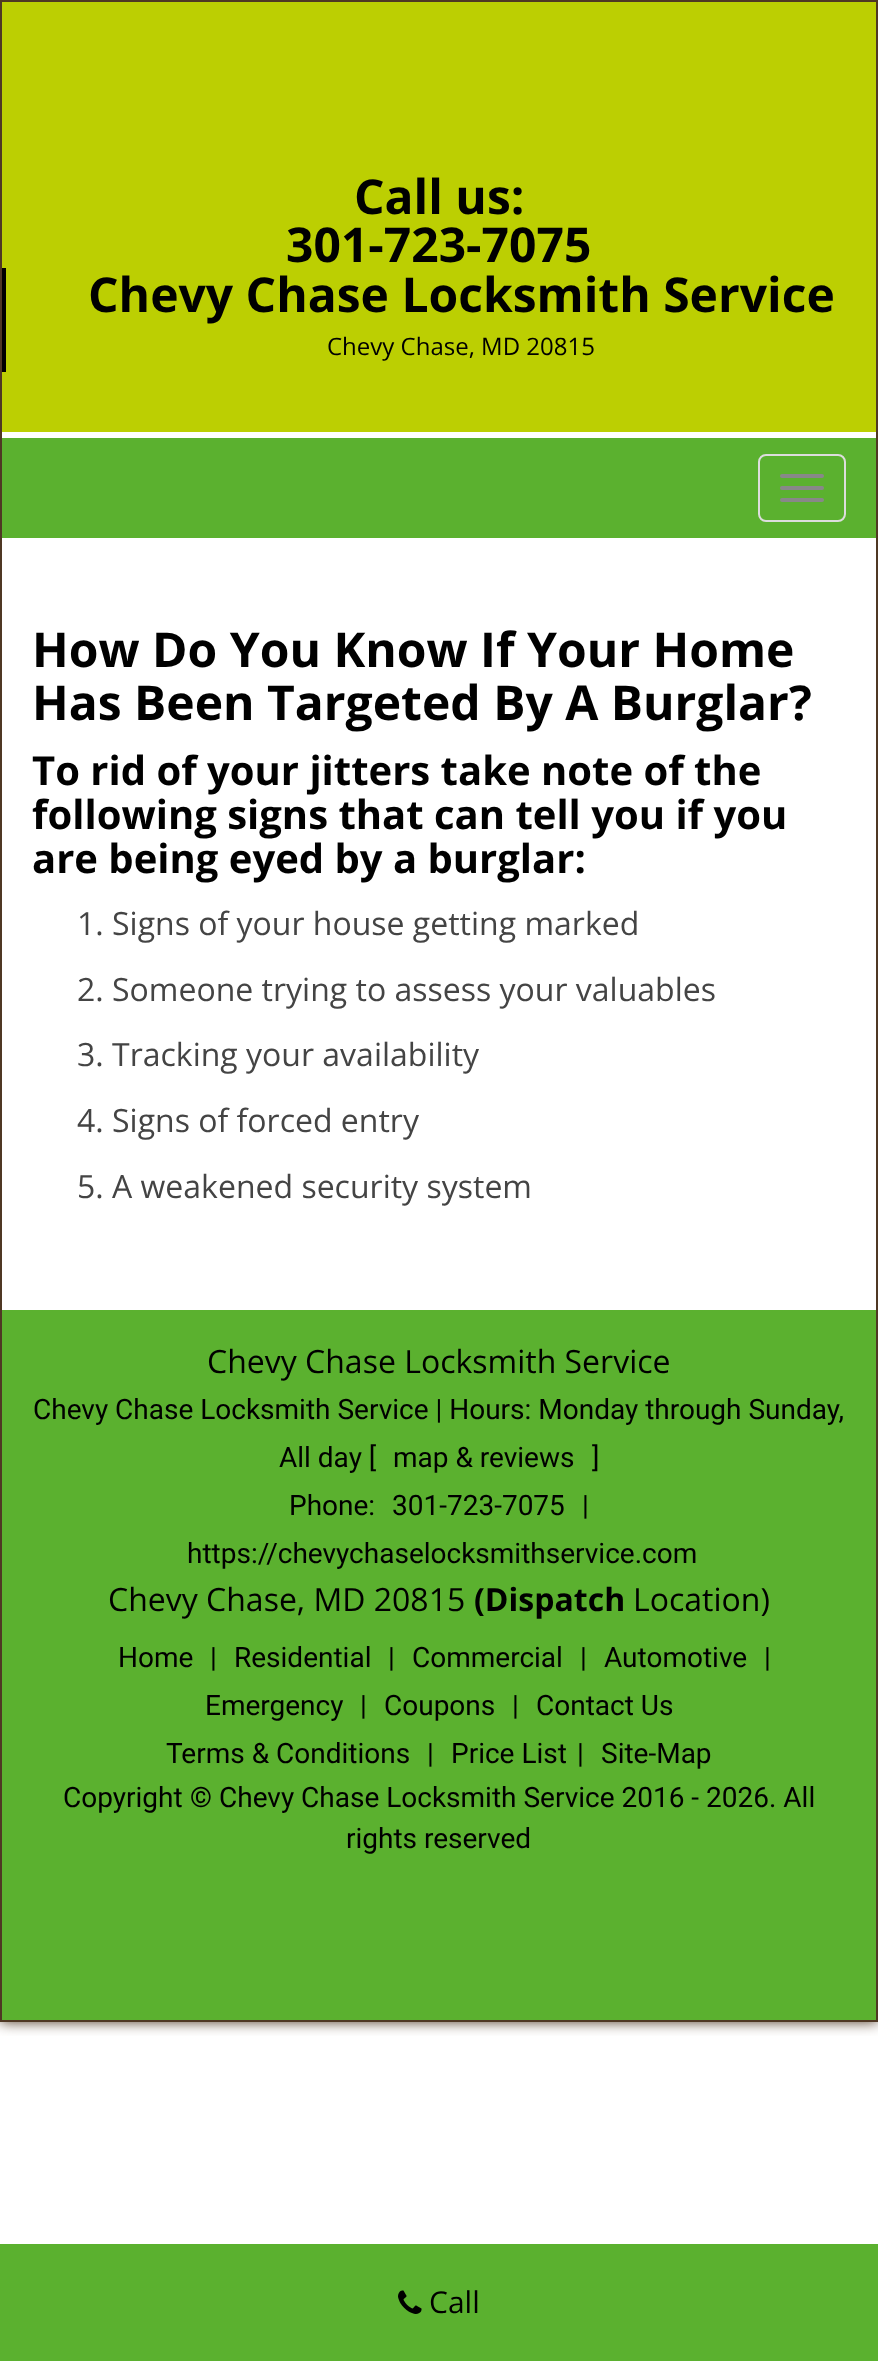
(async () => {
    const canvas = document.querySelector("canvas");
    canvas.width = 878;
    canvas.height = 2361;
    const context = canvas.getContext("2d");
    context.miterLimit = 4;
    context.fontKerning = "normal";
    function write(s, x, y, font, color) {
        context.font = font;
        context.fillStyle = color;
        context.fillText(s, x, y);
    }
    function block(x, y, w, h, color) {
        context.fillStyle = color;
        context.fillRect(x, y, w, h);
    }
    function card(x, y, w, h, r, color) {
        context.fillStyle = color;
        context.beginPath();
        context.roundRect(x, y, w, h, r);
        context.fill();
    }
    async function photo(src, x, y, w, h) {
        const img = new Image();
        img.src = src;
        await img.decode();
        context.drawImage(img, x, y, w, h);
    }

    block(0, 0, 878, 2361, "rgb(255, 255, 255)");
    context.save();
    context.beginPath();
    context.rect(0, 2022, 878, 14);
    context.clip();
    context.fillStyle = "rgb(79, 56, 36)";
    context.filter = "blur(7px)";
    context.beginPath();
    context.rect(0, 0, 878, 2022);
    context.fill();
    context.filter = "none";
    context.restore();
    context.strokeStyle = "rgb(79, 56, 36)";
    context.lineWidth = 2;
    context.strokeRect(1, 1, 876, 2020);
    block(2, 2, 874, 430, "rgb(188, 207, 2)");
    write("Call us:", 354, 214, "bold 48px Open Sans", "rgb(0, 0, 0)");
    write("301-723-7075", 286, 262, "bold 48px Open Sans", "rgb(0, 0, 0)");
    block(2, 268, 4, 104, "rgb(0, 0, 0)");
    write("Chevy Chase Locksmith Service", 88, 312, "bold 48px Open Sans", "rgb(0, 0, 0)");
    write("Chevy Chase, MD 20815", 327, 355, "24px Open Sans", "rgb(0, 0, 0)");
    block(2, 438, 874, 100, "rgb(91, 177, 47)");
    context.beginPath();
    context.roundRect(759, 455, 86, 66, 7);
    context.strokeStyle = "rgb(221, 221, 221)";
    context.stroke();
    card(780, 474, 44, 4, 2, "rgb(136, 136, 136)");
    card(780, 486, 44, 4, 2, "rgb(136, 136, 136)");
    card(780, 498, 44, 4, 2, "rgb(136, 136, 136)");
    write("How Do You Know If Your Home", 32, 667, "bold 48px Open Sans", "rgb(0, 0, 0)");
    write("Has Been Targeted By A Burglar?", 32, 720, "bold 48px Open Sans", "rgb(0, 0, 0)");
    write("To rid of your jitters take note of the", 32, 785, "bold 40px Open Sans", "rgb(0, 0, 0)");
    write("following signs that can tell you if you", 32, 829, "bold 40px Open Sans", "rgb(0, 0, 0)");
    write("are being eyed by a burglar:", 32, 873, "bold 40px Open Sans", "rgb(0, 0, 0)");
    write("1. Signs of your house getting marked", 77, 935, "32px Open Sans", "rgb(68, 68, 68)");
    write("2. Someone trying to assess your valuables", 77, 1001, "32px Open Sans", "rgb(68, 68, 68)");
    write("3. Tracking your availability", 77, 1066, "32px Open Sans", "rgb(68, 68, 68)");
    write("4. Signs of forced entry", 77, 1132, "32px Open Sans", "rgb(68, 68, 68)");
    write("5. A weakened security system", 77, 1198, "32px Open Sans", "rgb(68, 68, 68)");
    block(2, 1310, 874, 710, "rgb(91, 177, 47)");
    write("Chevy Chase Locksmith Service", 207, 1373, "32px Open Sans", "rgb(0, 0, 0)");
    write("Chevy Chase Locksmith Service | Hours: Monday through Sunday,", 33, 1419, "28px Roboto", "rgb(0, 0, 0)");
    write("All day [", 279, 1467, "28px Roboto", "rgb(0, 0, 0)");
    write("map & reviews", 393, 1467, "28px Roboto", "rgb(0, 0, 0)");
    write("]", 592, 1467, "28px Roboto", "rgb(0, 0, 0)");
    write("Phone:", 289, 1515, "28px Roboto", "rgb(0, 0, 0)");
    write("301-723-7075", 392, 1515, "28px Roboto", "rgb(0, 0, 0)");
    write("|", 582, 1515, "28px Roboto", "rgb(0, 0, 0)");
    write("https://chevychaselocksmithservice.com", 187, 1563, "28px Roboto", "rgb(0, 0, 0)");
    write("Chevy Chase, MD 20815", 108, 1611, "32px Open Sans", "rgb(0, 0, 0)");
    write("(Dispatch", 474, 1611, "bold 32px Open Sans", "rgb(0, 0, 0)");
    write("Location)", 633, 1611, "32px Open Sans", "rgb(0, 0, 0)");
    write("Home", 118, 1667, "28px Roboto", "rgb(0, 0, 0)");
    write("|", 210, 1667, "28px Roboto", "rgb(0, 0, 0)");
    write("Residential", 234, 1667, "28px Roboto", "rgb(0, 0, 0)");
    write("|", 388, 1667, "28px Roboto", "rgb(0, 0, 0)");
    write("Commercial", 412, 1667, "28px Roboto", "rgb(0, 0, 0)");
    write("|", 580, 1667, "28px Roboto", "rgb(0, 0, 0)");
    write("Automotive", 604, 1667, "28px Roboto", "rgb(0, 0, 0)");
    write("|", 764, 1667, "28px Roboto", "rgb(0, 0, 0)");
    write("Emergency", 205, 1715, "28px Roboto", "rgb(0, 0, 0)");
    write("|", 360, 1715, "28px Roboto", "rgb(0, 0, 0)");
    write("Coupons", 384, 1715, "28px Roboto", "rgb(0, 0, 0)");
    write("|", 512, 1715, "28px Roboto", "rgb(0, 0, 0)");
    write("Contact Us", 536, 1715, "28px Roboto", "rgb(0, 0, 0)");
    write("Terms & Conditions", 166, 1763, "28px Roboto", "rgb(0, 0, 0)");
    write("|", 427, 1763, "28px Roboto", "rgb(0, 0, 0)");
    write("Price List", 451, 1763, "28px Roboto", "rgb(0, 0, 0)");
    write("|", 577, 1763, "28px Roboto", "rgb(0, 0, 0)");
    write("Site-Map", 601, 1763, "28px Roboto", "rgb(0, 0, 0)");
    write("Copyright", 63, 1807, "28px Roboto", "rgb(0, 0, 0)");
    write("©", 190, 1807, "bold 28px Roboto", "rgb(0, 0, 0)");
    write("Chevy Chase Locksmith Service 2016 - 2026. All", 219, 1807, "28px Roboto", "rgb(0, 0, 0)");
    write("rights reserved", 346, 1848, "28px Roboto", "rgb(0, 0, 0)");
    block(0, 2244, 878, 117, "rgb(91, 177, 47)");
    await photo("media/1.png", 398, 2290, 24, 24);
    write("Call", 429, 2313, "30px Open Sans", "rgb(0, 0, 0)");
})();
